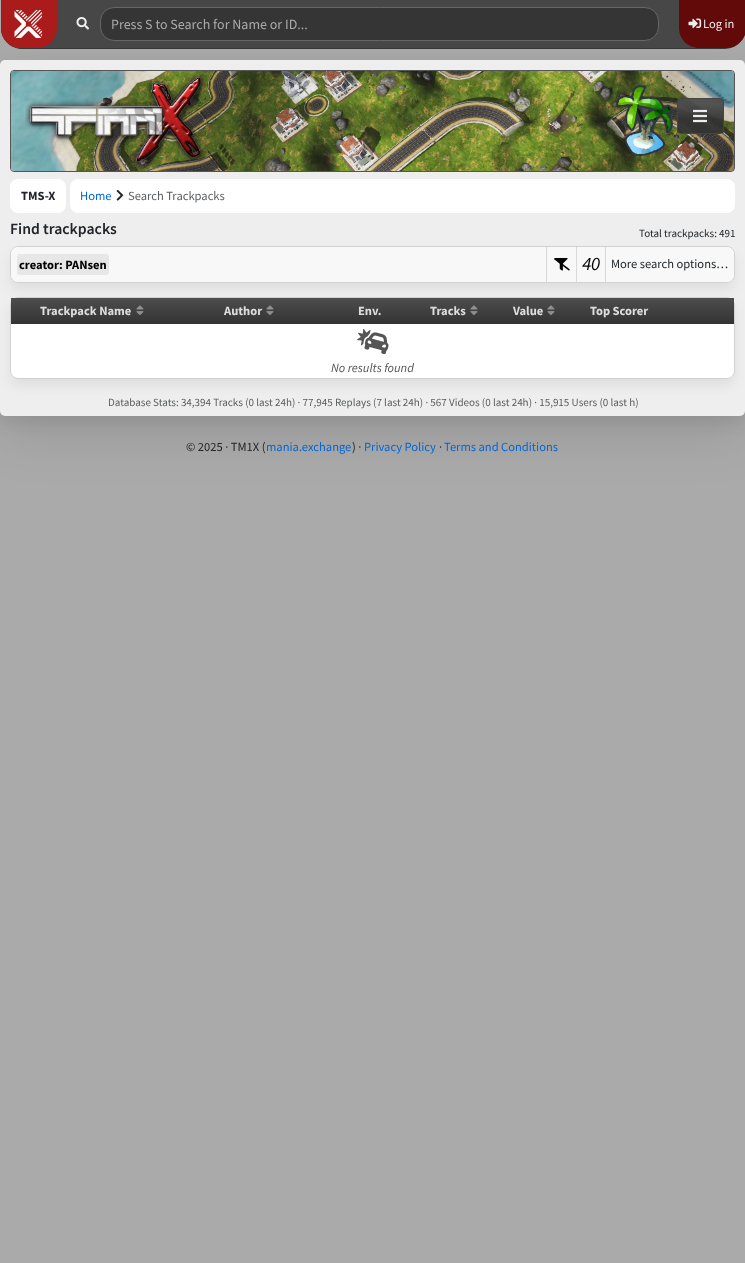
(async () => {
    const canvas = document.querySelector("canvas");
    canvas.width = 745;
    canvas.height = 1263;
    const context = canvas.getContext("2d");
    context.miterLimit = 4;
    context.fontKerning = "normal";
    function write(s, x, y, font, color) {
        context.font = font;
        context.fillStyle = color;
        context.fillText(s, x, y);
    }
    function block(x, y, w, h, color) {
        context.fillStyle = color;
        context.fillRect(x, y, w, h);
    }
    function card(x, y, w, h, r, color) {
        context.fillStyle = color;
        context.beginPath();
        context.roundRect(x, y, w, h, r);
        context.fill();
    }
    async function photo(src, x, y, w, h) {
        const img = new Image();
        img.src = src;
        await img.decode();
        context.drawImage(img, x, y, w, h);
    }
    let gradient;

    block(0, 0, 745, 1263, "rgb(170, 170, 170)");
    context.fillStyle = "rgba(0, 0, 0, 0.1)";
    context.filter = "blur(25px)";
    context.beginPath();
    context.roundRect(0, 80, 745, 356, 5);
    context.fill();
    context.filter = "none";
    context.fillStyle = "rgba(0, 0, 0, 0.07)";
    context.filter = "blur(7.5px)";
    context.beginPath();
    context.roundRect(0, 66, 745, 356, 5);
    context.fill();
    context.filter = "none";
    context.fillStyle = "rgb(55, 57, 56)";
    context.beginPath();
    context.moveTo(1, 0);
    context.lineTo(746, 0);
    context.lineTo(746, 28);
    context.bezierCurveTo(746, 39.5, 736.5, 49, 725, 49);
    context.lineTo(22, 49);
    context.bezierCurveTo(10.5, 49, 1, 39.5, 1, 28);
    context.closePath();
    context.fill();
    context.fillStyle = "rgb(71, 71, 71)";
    context.beginPath();
    context.moveTo(1, 0);
    context.lineTo(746, 0);
    context.lineTo(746, 28);
    context.bezierCurveTo(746, 39, 737, 48, 726, 48);
    context.lineTo(21, 48);
    context.bezierCurveTo(10, 48, 1, 39, 1, 28);
    context.closePath();
    context.fill();
    context.fillStyle = "rgb(170, 28, 28)";
    context.beginPath();
    context.roundRect(1, 0, 56, 48, [0, 0, 20, 20]);
    context.fill();
    await photo("media/1.png", 14, 10, 28, 28);
    await photo("media/2.png", 76, 17, 14, 13);
    context.fillStyle = "rgb(53, 53, 53)";
    context.beginPath();
    context.roundRect(100.5, 7.5, 558, 33, 13.5);
    context.fill();
    context.strokeStyle = "rgb(103, 103, 103)";
    context.stroke();
    write("Press S to Search for Name or ID...", 111, 29, "14px Source Sans Pro", "rgb(170, 170, 170)");
    context.fillStyle = "rgb(98, 9, 9)";
    context.beginPath();
    context.moveTo(679, 0);
    context.lineTo(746, 0);
    context.lineTo(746, 28);
    context.bezierCurveTo(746, 39, 737, 48, 726, 48);
    context.lineTo(699, 48);
    context.bezierCurveTo(688, 48, 679, 39, 679, 28);
    context.closePath();
    context.fill();
    await photo("media/3.png", 688, 18, 14, 11);
    write("Log in", 703, 28, "12.5px Source Sans Pro", "rgb(238, 238, 238)");
    card(0, 60, 745, 356, 5, "rgb(238, 238, 238)");
    context.beginPath();
    context.roundRect(10.5, 70.5, 724, 101, 3.5);
    context.strokeStyle = "rgb(85, 85, 85)";
    context.stroke();
    await photo("media/4.png", 11, 71, 723, 100);
    await photo("media/5.png", 25, 75, 181, 91);
    await photo("media/6.png", 616, 85, 57, 71);
    context.save();
    context.beginPath();
    context.roundRect(677, 98, 47, 36, 4);
    context.clip();
    gradient = context.createLinearGradient(678, 133, 678, 99);
    gradient.addColorStop(0.39, "rgba(51, 51, 51, 0.95)");
    gradient.addColorStop(0.85, "rgba(77, 77, 77, 0.95)");
    context.fillStyle = gradient;
    context.fillRect(677, 99, 47, 34);
    context.restore();
    context.beginPath();
    context.roundRect(677.5, 98.5, 46, 35, 3.5);
    context.strokeStyle = "rgb(68, 68, 68)";
    context.stroke();
    await photo("media/7.png", 693, 109, 14, 14);
    card(10, 179, 56, 34, 8, "rgb(255, 255, 255)");
    write("TMS-X", 21, 200, "bold 12.5px Source Sans Pro", "rgb(33, 37, 41)");
    card(70, 179, 665, 34, 8, "rgb(255, 255, 255)");
    write("Home", 80, 200, "12.5px Source Sans Pro", "rgb(3, 102, 214)");
    await photo("media/8.png", 116, 190, 8, 11);
    write("Search Trackpacks", 128, 200, "12.5px Source Sans Pro", "rgb(89, 92, 95)");
    write("Find trackpacks", 10, 234, "600 15.75px Source Sans Pro", "rgb(33, 37, 41)");
    write("Total trackpacks: 491", 639, 237, "11.05px Source Sans Pro", "rgb(33, 37, 41)");
    context.fillStyle = "rgba(0, 0, 0, 0.06)";
    context.filter = "blur(5.5px)";
    context.beginPath();
    context.roundRect(10, 253, 725, 37, 8);
    context.fill();
    context.filter = "none";
    card(10, 246, 725, 37, 8, "rgb(255, 255, 255)");
    context.beginPath();
    context.roundRect(10.5, 246.5, 724, 36, 7.5);
    context.strokeStyle = "rgba(0, 0, 0, 0.18)";
    context.stroke();
    context.fillStyle = "rgb(248, 248, 248)";
    context.beginPath();
    context.roundRect(11, 247, 536, 35, [8, 0, 0, 8]);
    context.fill();
    block(546, 247, 1, 35, "rgb(217, 217, 217)");
    card(17, 254, 92, 21, 3, "rgb(231, 231, 231)");
    write("creator: PANsen", 19, 269, "bold 12.5px Source Sans Pro", "rgb(0, 0, 0)");
    block(547, 247, 29, 35, "rgb(248, 248, 248)");
    block(576, 247, 1, 35, "rgb(217, 217, 217)");
    await photo("media/10.png", 555, 258, 13, 13);
    await photo("media/9.png", 554, 258, 16, 13);
    block(577, 247, 28, 35, "rgb(248, 248, 248)");
    block(605, 247, 1, 35, "rgb(217, 217, 217)");
    write("40", 582, 270, "italic 19px Source Sans Pro", "rgb(0, 0, 0)");
    context.fillStyle = "rgb(248, 248, 248)";
    context.beginPath();
    context.roundRect(606, 247, 128, 35, [0, 8, 8, 0]);
    context.fill();
    write("More search options…", 611, 268, "12.5px Source Sans Pro", "rgb(33, 37, 41)");
    context.fillStyle = "rgba(0, 0, 0, 0.06)";
    context.filter = "blur(5.5px)";
    context.beginPath();
    context.roundRect(10, 304, 725, 82, 8);
    context.fill();
    context.filter = "none";
    card(10, 297, 725, 82, 8, "rgb(255, 255, 255)");
    context.beginPath();
    context.roundRect(10.5, 297.5, 724, 81, 7.5);
    context.stroke();
    gradient = context.createLinearGradient(373, 324, 373, 298);
    gradient.addColorStop(0, "rgb(51, 51, 51)");
    gradient.addColorStop(1, "rgb(77, 77, 77)");
    context.fillStyle = gradient;
    context.fillRect(11, 298, 723, 26);
    write("Trackpack Name", 40, 315, "bold 12.5px Source Sans Pro", "rgb(221, 221, 221)");
    await photo("media/11.png", 136, 305, 8, 10);
    write("Author", 224, 315, "bold 12.5px Source Sans Pro", "rgb(221, 221, 221)");
    await photo("media/11.png", 266, 305, 8, 10);
    write("Env.", 358, 315, "bold 12.5px Source Sans Pro", "rgb(221, 221, 221)");
    write("Tracks", 430, 315, "bold 12.5px Source Sans Pro", "rgb(221, 221, 221)");
    await photo("media/11.png", 470, 305, 8, 10);
    write("Value", 513, 315, "bold 12.5px Source Sans Pro", "rgb(221, 221, 221)");
    await photo("media/11.png", 547, 305, 8, 10);
    write("Top Scorer", 590, 315, "bold 12.5px Source Sans Pro", "rgb(221, 221, 221)");
    await photo("media/12.png", 357, 329, 32, 26);
    write("No results found", 331, 372, "italic 12.5px Source Sans Pro", "rgb(85, 85, 85)");
    write("Database Stats: 34,394 Tracks (0 last 24h) · 77,945 Replays (7 last 24h) · 567 Videos (0 last 24h) · 15,915 Users (0 last h)", 108, 406, "11.05px Source Sans Pro", "rgb(89, 92, 95)");
    write("© 2025 · TM1X (", 186, 451, "12.5px Source Sans Pro", "rgb(33, 37, 41)");
    write("mania.exchange", 266, 451, "12.5px Source Sans Pro", "rgb(3, 102, 214)");
    write(") ·", 352, 451, "12.5px Source Sans Pro", "rgb(33, 37, 41)");
    write("Privacy Policy", 364, 451, "12.5px Source Sans Pro", "rgb(3, 102, 214)");
    write("·", 439, 451, "12.5px Source Sans Pro", "rgb(33, 37, 41)");
    write("Terms and Conditions", 444, 451, "12.5px Source Sans Pro", "rgb(3, 102, 214)");
})();
